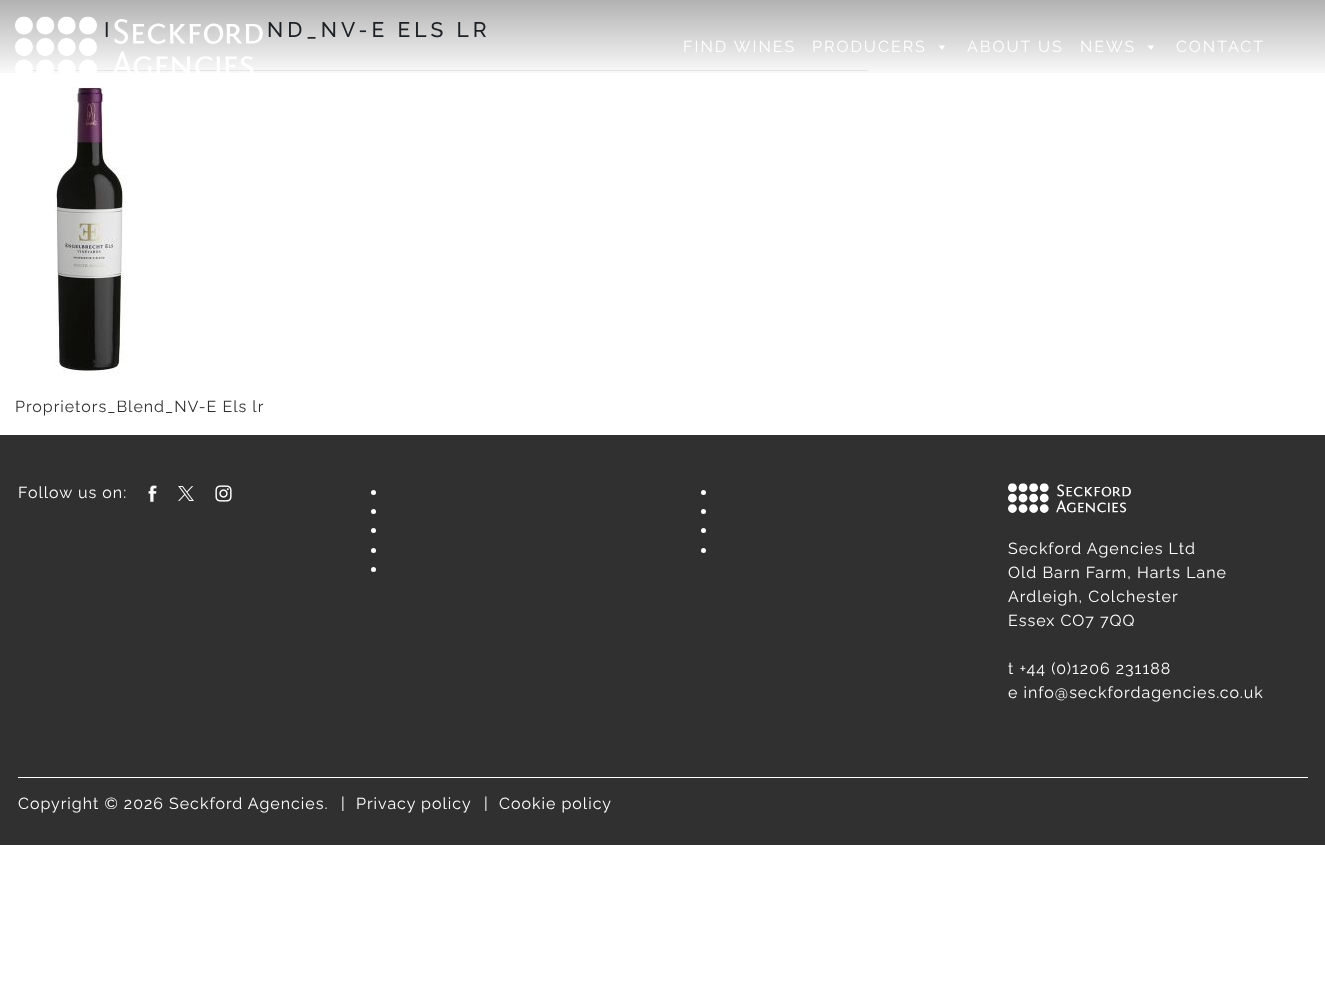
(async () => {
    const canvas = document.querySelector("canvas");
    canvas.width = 1325;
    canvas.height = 999;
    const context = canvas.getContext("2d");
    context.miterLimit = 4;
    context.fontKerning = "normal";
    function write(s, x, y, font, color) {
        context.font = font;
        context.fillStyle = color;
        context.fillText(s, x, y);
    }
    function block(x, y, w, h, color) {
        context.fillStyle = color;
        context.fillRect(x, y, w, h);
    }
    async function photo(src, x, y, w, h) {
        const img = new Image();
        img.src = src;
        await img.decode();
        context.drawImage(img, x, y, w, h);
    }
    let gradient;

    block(0, 0, 1325, 999, "rgb(255, 255, 255)");
    block(15, 70, 853, 1, "rgb(234, 236, 239)");
    context.letterSpacing = "4px";
    write("I", 104, 37, "500 21px Raleway", "rgb(36, 41, 46)");
    write("ND_NV-E ELS LR", 267, 37, "500 21px Raleway", "rgb(36, 41, 46)");
    await photo("media/1.png", 55, 87, 72, 287);
    context.letterSpacing = "1px";
    write("Proprietors_Blend_NV-E Els lr", 15, 412, "16px Raleway", "rgb(48, 48, 48)");
    gradient = context.createLinearGradient(663, 0, 663, 94);
    gradient.addColorStop(0, "rgba(0, 0, 0, 0.3)");
    gradient.addColorStop(0.84, "rgba(0, 0, 0, 0)");
    context.fillStyle = gradient;
    context.fillRect(0, 0, 1325, 73);
    await photo("media/2.png", 15, 16, 248, 58);
    context.letterSpacing = "2px";
    write("FIND WINES", 683, 52, "16px Raleway", "rgb(255, 255, 255)");
    write("PRODUCERS", 812, 52, "16px Raleway", "rgb(255, 255, 255)");
    context.beginPath();
    context.moveTo(945, 45.5);
    context.lineTo(942, 50);
    context.lineTo(938.5, 45.5);
    context.closePath();
    context.fill();
    write("ABOUT US", 967, 52, "16px Raleway", "rgb(255, 255, 255)");
    write("NEWS", 1080, 52, "16px Raleway", "rgb(255, 255, 255)");
    context.beginPath();
    context.moveTo(1154, 45.5);
    context.lineTo(1151, 50);
    context.lineTo(1147.5, 45.5);
    context.closePath();
    context.fill();
    write("CONTACT", 1176, 52, "16px Raleway", "rgb(255, 255, 255)");
    block(0, 435, 1325, 410, "rgb(48, 48, 48)");
    context.letterSpacing = "1px";
    write("Follow us on:", 18, 498, "16px Raleway", "rgb(255, 255, 255)");
    await photo("media/3.png", 148, 485, 9, 17);
    await photo("media/4.png", 178, 486, 16, 15);
    await photo("media/5.png", 215, 485, 17, 17);
    context.beginPath();
    context.arc(373.5, 492.5, 2.5, 0, Math.PI * 2);
    context.fill();
    context.beginPath();
    context.arc(373.5, 511.5, 2.5, 0, Math.PI * 2);
    context.fill();
    context.beginPath();
    context.arc(373.5, 530.5, 2.5, 0, Math.PI * 2);
    context.fill();
    context.beginPath();
    context.arc(373.5, 550.5, 2.5, 0, Math.PI * 2);
    context.fill();
    context.beginPath();
    context.arc(373.5, 569.5, 2.5, 0, Math.PI * 2);
    context.fill();
    context.beginPath();
    context.arc(703.5, 492.5, 2.5, 0, Math.PI * 2);
    context.fill();
    context.beginPath();
    context.arc(703.5, 511.5, 2.5, 0, Math.PI * 2);
    context.fill();
    context.beginPath();
    context.arc(703.5, 530.5, 2.5, 0, Math.PI * 2);
    context.fill();
    context.beginPath();
    context.arc(703.5, 550.5, 2.5, 0, Math.PI * 2);
    context.fill();
    await photo("media/6.png", 1008, 483, 123, 30);
    write("Seckford Agencies Ltd", 1008, 554, "16px Raleway", "rgb(255, 255, 255)");
    write("Old Barn Farm, Harts Lane", 1008, 578, "16px Raleway", "rgb(255, 255, 255)");
    write("Ardleigh, Colchester", 1008, 602, "16px Raleway", "rgb(255, 255, 255)");
    write("Essex CO7 7QQ", 1008, 626, "16px Raleway", "rgb(255, 255, 255)");
    write("t +44 (0)1206 231188", 1008, 674, "16px Raleway", "rgb(255, 255, 255)");
    write("e info@seckfordagencies.co.uk", 1008, 698, "16px Raleway", "rgb(255, 255, 255)");
    block(18, 777, 1290, 1, "rgb(255, 255, 255)");
    write("Copyright © 2026 Seckford Agencies.", 18, 809, "16px Raleway", "rgb(255, 255, 255)");
    write("|", 341, 809, "16px Raleway", "rgb(255, 255, 255)");
    write("Privacy policy", 356, 809, "16px Raleway", "rgb(255, 255, 255)");
    write("|", 484, 809, "16px Raleway", "rgb(255, 255, 255)");
    write("Cookie policy", 499, 809, "16px Raleway", "rgb(255, 255, 255)");
})();
